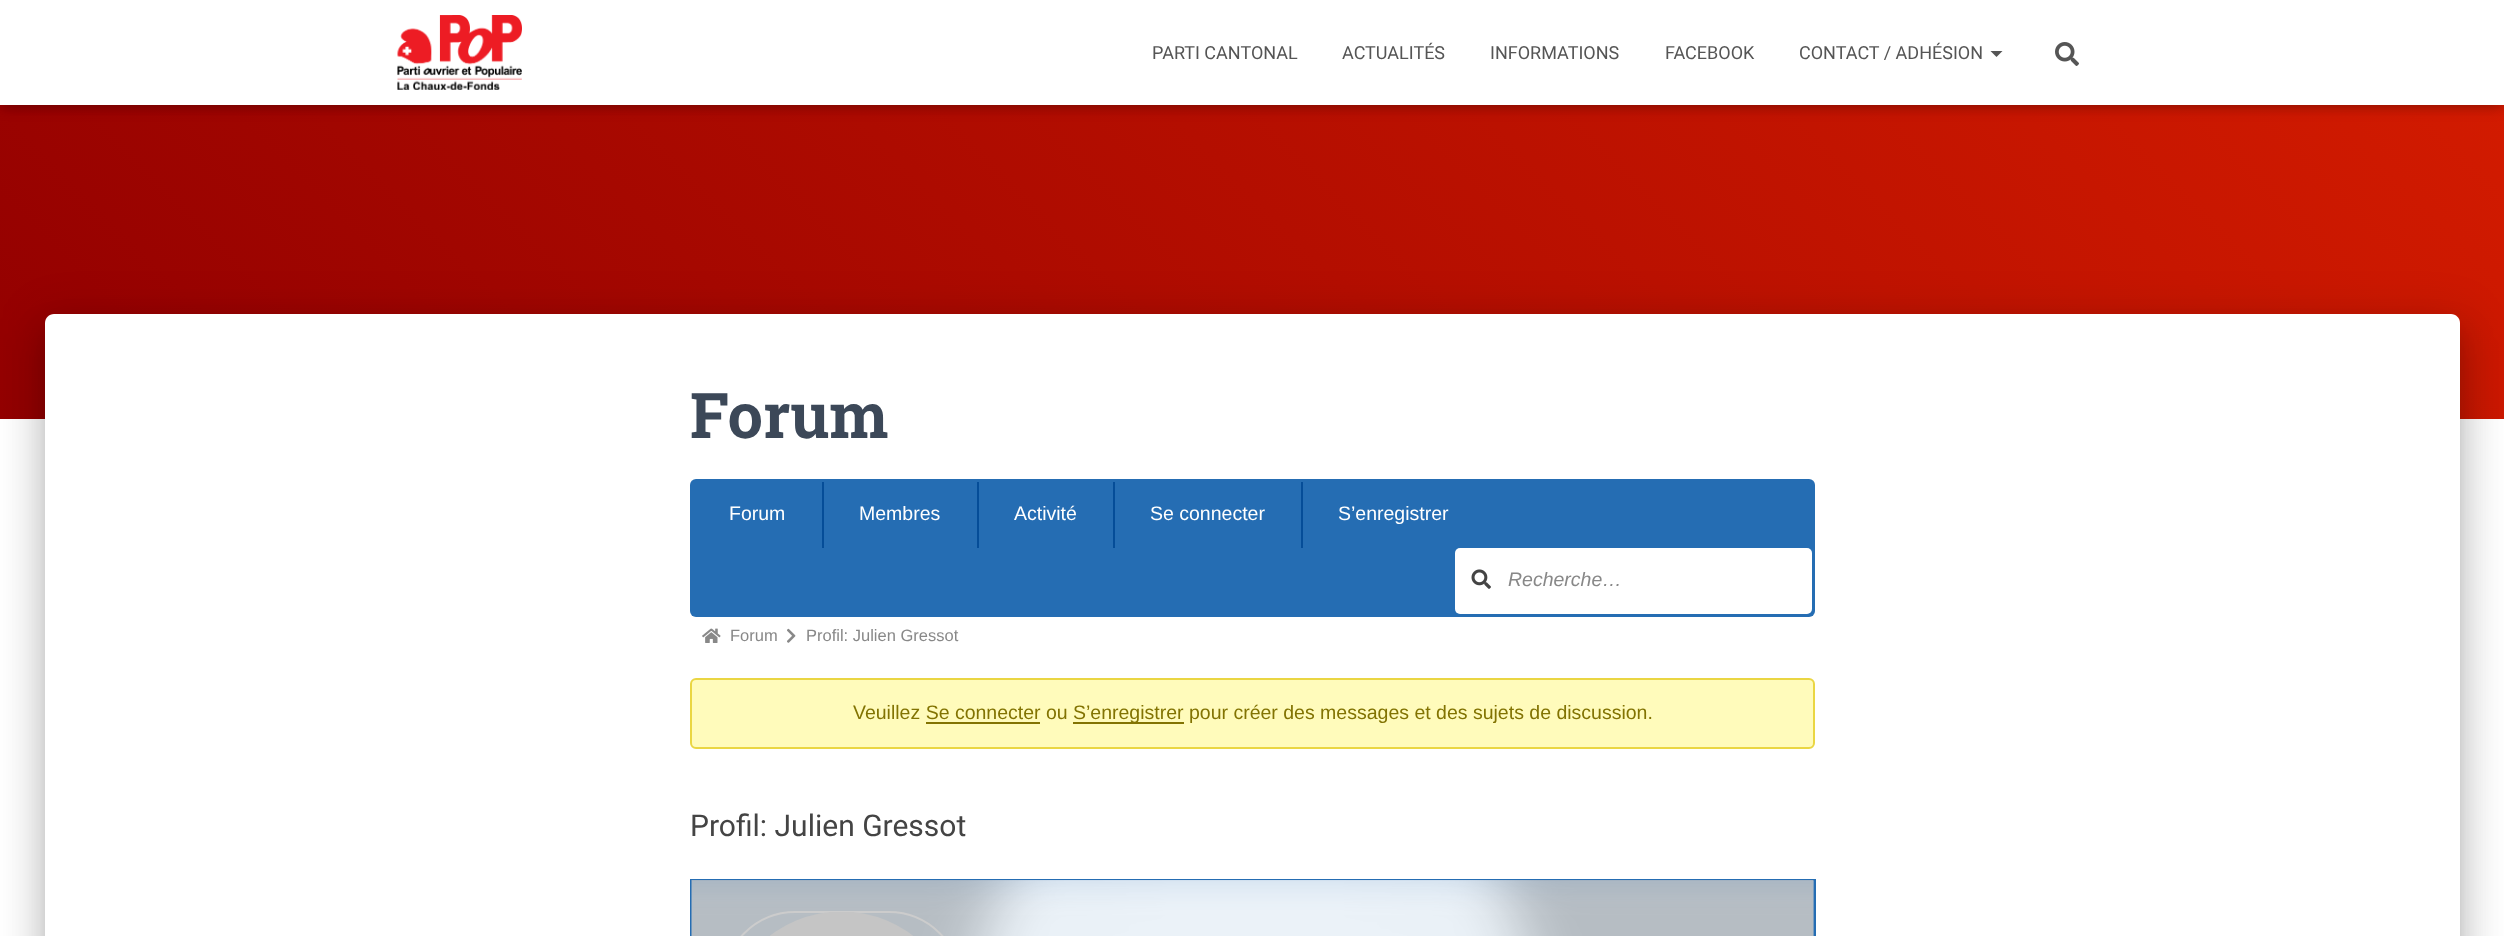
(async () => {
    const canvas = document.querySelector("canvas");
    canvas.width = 2504;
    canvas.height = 936;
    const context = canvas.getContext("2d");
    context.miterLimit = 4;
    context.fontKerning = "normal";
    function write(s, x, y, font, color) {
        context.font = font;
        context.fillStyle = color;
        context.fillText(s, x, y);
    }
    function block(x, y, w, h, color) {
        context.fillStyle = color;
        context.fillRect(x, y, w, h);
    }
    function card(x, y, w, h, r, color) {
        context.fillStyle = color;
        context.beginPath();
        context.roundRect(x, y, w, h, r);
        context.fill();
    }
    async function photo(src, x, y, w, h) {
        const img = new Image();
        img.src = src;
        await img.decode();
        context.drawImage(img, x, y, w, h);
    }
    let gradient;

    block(0, 0, 2504, 936, "rgb(255, 255, 255)");
    gradient = context.createLinearGradient(514, 933, 1991, -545);
    gradient.addColorStop(0, "rgb(147, 0, 0)");
    gradient.addColorStop(1, "rgb(213, 28, 0)");
    context.fillStyle = gradient;
    context.fillRect(0, 105, 2504, 314);
    context.fillStyle = "rgba(0, 0, 0, 0.1)";
    context.filter = "blur(4px)";
    context.beginPath();
    context.rect(3, 9, 2499, 99);
    context.fill();
    context.filter = "none";
    context.fillStyle = "rgba(0, 0, 0, 0.12)";
    context.filter = "blur(7.5px)";
    context.beginPath();
    context.rect(0, 2, 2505, 105);
    context.fill();
    context.filter = "none";
    context.fillStyle = "rgba(0, 0, 0, 0.42)";
    context.filter = "blur(7.5px)";
    context.beginPath();
    context.rect(9, 11, 2487, 87);
    context.fill();
    context.filter = "none";
    block(0, 0, 2504, 105, "rgb(255, 255, 255)");
    await photo("media/1.png", 397, 15, 125, 75);
    write("PARTI CANTONAL", 1152, 59, "18px Roboto", "rgb(85, 85, 85)");
    write("ACTUALITÉS", 1342, 59, "18px Roboto", "rgb(85, 85, 85)");
    write("INFORMATIONS", 1490, 59, "18px Roboto", "rgb(85, 85, 85)");
    write("FACEBOOK", 1665, 59, "18px Roboto", "rgb(85, 85, 85)");
    write("CONTACT / ADHÉSION", 1799, 59, "18px Roboto", "rgb(85, 85, 85)");
    context.beginPath();
    context.moveTo(1990.5, 51);
    context.lineTo(2002.5, 51);
    context.lineTo(1996.5, 57);
    context.closePath();
    context.fill();
    await photo("media/2.png", 2055, 42, 24, 24);
    context.fillStyle = "rgba(0, 0, 0, 0.2)";
    context.filter = "blur(7.5px)";
    context.beginPath();
    context.roundRect(53, 333, 2400, 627, 1.5);
    context.fill();
    context.filter = "none";
    context.fillStyle = "rgba(0, 0, 0, 0.12)";
    context.filter = "blur(22.5px)";
    context.beginPath();
    context.roundRect(38, 315, 2430, 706, 17);
    context.fill();
    context.filter = "none";
    context.fillStyle = "rgba(0, 0, 0, 0.14)";
    context.filter = "blur(18px)";
    context.beginPath();
    context.roundRect(42, 335, 2421, 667, 12);
    context.fill();
    context.filter = "none";
    context.fillStyle = "rgb(255, 255, 255)";
    context.beginPath();
    context.moveTo(54, 314);
    context.lineTo(2451, 314);
    context.bezierCurveTo(2456, 314, 2460, 318, 2460, 323);
    context.lineTo(2460, 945);
    context.lineTo(45, 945);
    context.lineTo(45, 323);
    context.bezierCurveTo(45, 318, 49, 314, 54, 314);
    context.closePath();
    context.fill();
    write("Forum", 690, 438, "bold 63px Roboto Slab", "rgb(60, 72, 88)");
    card(690, 479, 1125, 138, 6, "rgb(37, 109, 179)");
    write("Forum", 729, 520, "19.5px Liberation Sans", "rgb(255, 255, 255)");
    block(822, 482, 2, 66, "rgb(5, 77, 152)");
    write("Membres", 859, 520, "19.5px Liberation Sans", "rgb(255, 255, 255)");
    block(977, 482, 2, 66, "rgb(5, 77, 152)");
    write("Activité", 1014, 520, "19.5px Liberation Sans", "rgb(255, 255, 255)");
    block(1113, 482, 2, 66, "rgb(5, 77, 152)");
    write("Se connecter", 1150, 520, "19.5px Liberation Sans", "rgb(255, 255, 255)");
    block(1301, 482, 2, 66, "rgb(5, 77, 152)");
    write("S’enregistrer", 1338, 520, "19.5px Liberation Sans", "rgb(255, 255, 255)");
    card(1455, 548, 357, 66, 5, "rgb(255, 255, 255)");
    await photo("media/3.png", 1471, 569, 20, 20);
    write("Recherche…", 1508, 586, "italic 19.5px Liberation Sans", "rgb(136, 136, 136)");
    await photo("media/4.png", 702, 628, 19, 15);
    write("Forum", 730, 641, "16.5px Liberation Sans", "rgb(136, 136, 136)");
    await photo("media/5.png", 787, 628, 9, 15);
    write("Profil: Julien Gressot", 806, 641, "16.5px Liberation Sans", "rgb(136, 136, 136)");
    context.fillStyle = "rgb(255, 251, 187)";
    context.beginPath();
    context.roundRect(691, 679, 1123, 69, 5);
    context.fill();
    context.strokeStyle = "rgb(234, 214, 67)";
    context.lineWidth = 2;
    context.stroke();
    write("Veuillez Se connecter ou", 853, 719, "19.5px Liberation Sans", "rgb(130, 115, 2)");
    block(1073, 722, 111, 2, "rgb(130, 115, 2)");
    write("S’enregistrer pour créer des messages et des sujets de discussion.", 1073, 719, "19.5px Liberation Sans", "rgb(130, 115, 2)");
    block(926, 722, 114, 2, "rgb(130, 115, 2)");
    block(690, 879, 1125, 2, "rgb(37, 109, 179)");
    block(1814, 879, 2, 57, "rgb(37, 109, 179)");
    block(690, 879, 2, 57, "rgb(37, 109, 179)");
    context.save();
    context.beginPath();
    context.rect(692, 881, 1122, 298);
    context.clip();
    context.fillStyle = "rgb(59, 124, 187)";
    context.filter = "blur(22.5px)";
    context.beginPath();
    context.rect(579, 851, 1347, 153);
    context.fill();
    context.filter = "none";
    context.restore();
    await photo("media/6.png", 691, 880, 1123, 56);
    context.beginPath();
    context.roundRect(723, 912, 238, 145, 119);
    context.strokeStyle = "rgb(204, 204, 204)";
    context.stroke();
    await photo("media/7.png", 770, 912, 143, 24);
    write("Profil: Julien Gressot", 690, 836, "30px Roboto", "rgb(68, 68, 68)");
})();
